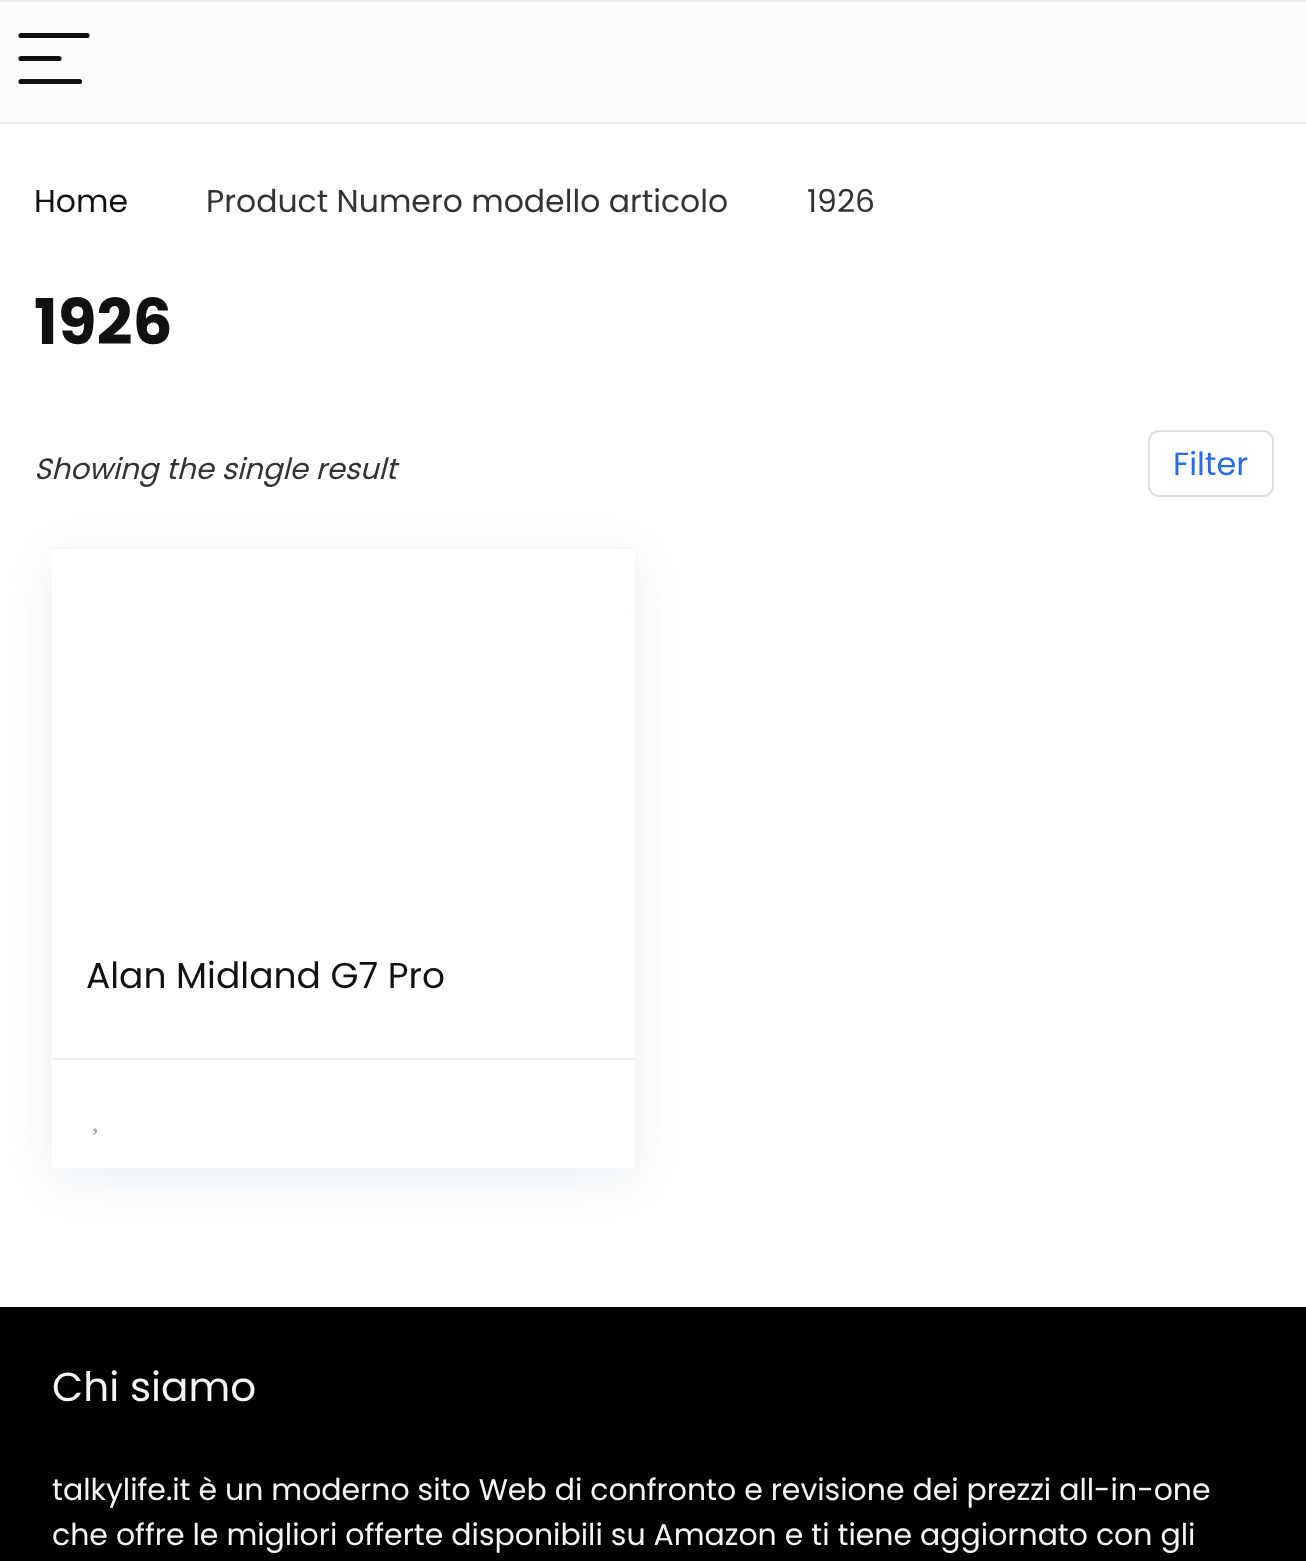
(async () => {
    const canvas = document.querySelector("canvas");
    canvas.width = 1306;
    canvas.height = 1561;
    const context = canvas.getContext("2d");
    context.miterLimit = 4;
    context.fontKerning = "normal";
    function write(s, x, y, font, color) {
        context.font = font;
        context.fillStyle = color;
        context.fillText(s, x, y);
    }
    function block(x, y, w, h, color) {
        context.fillStyle = color;
        context.fillRect(x, y, w, h);
    }
    async function photo(src, x, y, w, h) {
        const img = new Image();
        img.src = src;
        await img.decode();
        context.drawImage(img, x, y, w, h);
    }

    block(0, 0, 1306, 1561, "rgb(255, 255, 255)");
    block(0, 2, 1306, 120, "rgb(252, 252, 252)");
    block(0, 0, 1306, 2, "rgb(238, 238, 238)");
    block(0, 122, 1306, 2, "rgb(238, 238, 238)");
    context.beginPath();
    context.moveTo(21, 35.5);
    context.lineTo(87, 35.5);
    context.strokeStyle = "rgb(17, 17, 17)";
    context.lineWidth = 5.1;
    context.lineCap = "round";
    context.stroke();
    context.beginPath();
    context.moveTo(21, 58.5);
    context.lineTo(59, 58.5);
    context.stroke();
    context.beginPath();
    context.moveTo(21, 81.5);
    context.lineTo(79.5, 81.5);
    context.stroke();
    write("Home", 34, 212, "31.5px Poppins", "rgb(17, 17, 17)");
    write("Product Numero modello articolo", 206, 212, "31.5px Poppins", "rgb(51, 51, 51)");
    write("1926", 807, 212, "31.5px Poppins", "rgb(51, 51, 51)");
    write("1926", 34, 344, "bold 63px Poppins", "rgb(17, 17, 17)");
    write("Showing the single result", 34, 479, "italic 29.25px Poppins", "rgb(51, 51, 51)");
    context.beginPath();
    context.roundRect(1149, 431, 124, 65, 10);
    context.strokeStyle = "rgb(220, 224, 224)";
    context.lineWidth = 2;
    context.stroke();
    write("Filter", 1173, 475, "32px Poppins", "rgb(40, 106, 238)");
    context.fillStyle = "rgba(188, 207, 219, 0.35)";
    context.filter = "blur(26px)";
    context.beginPath();
    context.rect(52, 558, 583, 621);
    context.fill();
    context.filter = "none";
    block(52, 549, 583, 619, "rgb(255, 255, 255)");
    block(52, 547, 583, 2, "rgb(248, 248, 248)");
    write("Alan Midland G7 Pro", 86, 988, "36px Poppins", "rgb(17, 17, 17)");
    block(52, 1058, 583, 2, "rgb(240, 240, 240)");
    await photo("media/1.png", 93, 1128, 4, 7);
    block(0, 1307, 1306, 254, "rgb(0, 0, 0)");
    write("Chi siamo", 52, 1401, "40.5px Poppins", "rgb(245, 245, 245)");
    write("talkylife.it è un moderno sito Web di confronto e revisione dei prezzi all-in-one", 52, 1500, "29.95px Poppins", "rgb(245, 245, 245)");
    write("che offre le migliori offerte disponibili su Amazon e ti tiene aggiornato con gli", 52, 1545, "29.95px Poppins", "rgb(245, 245, 245)");
})();
